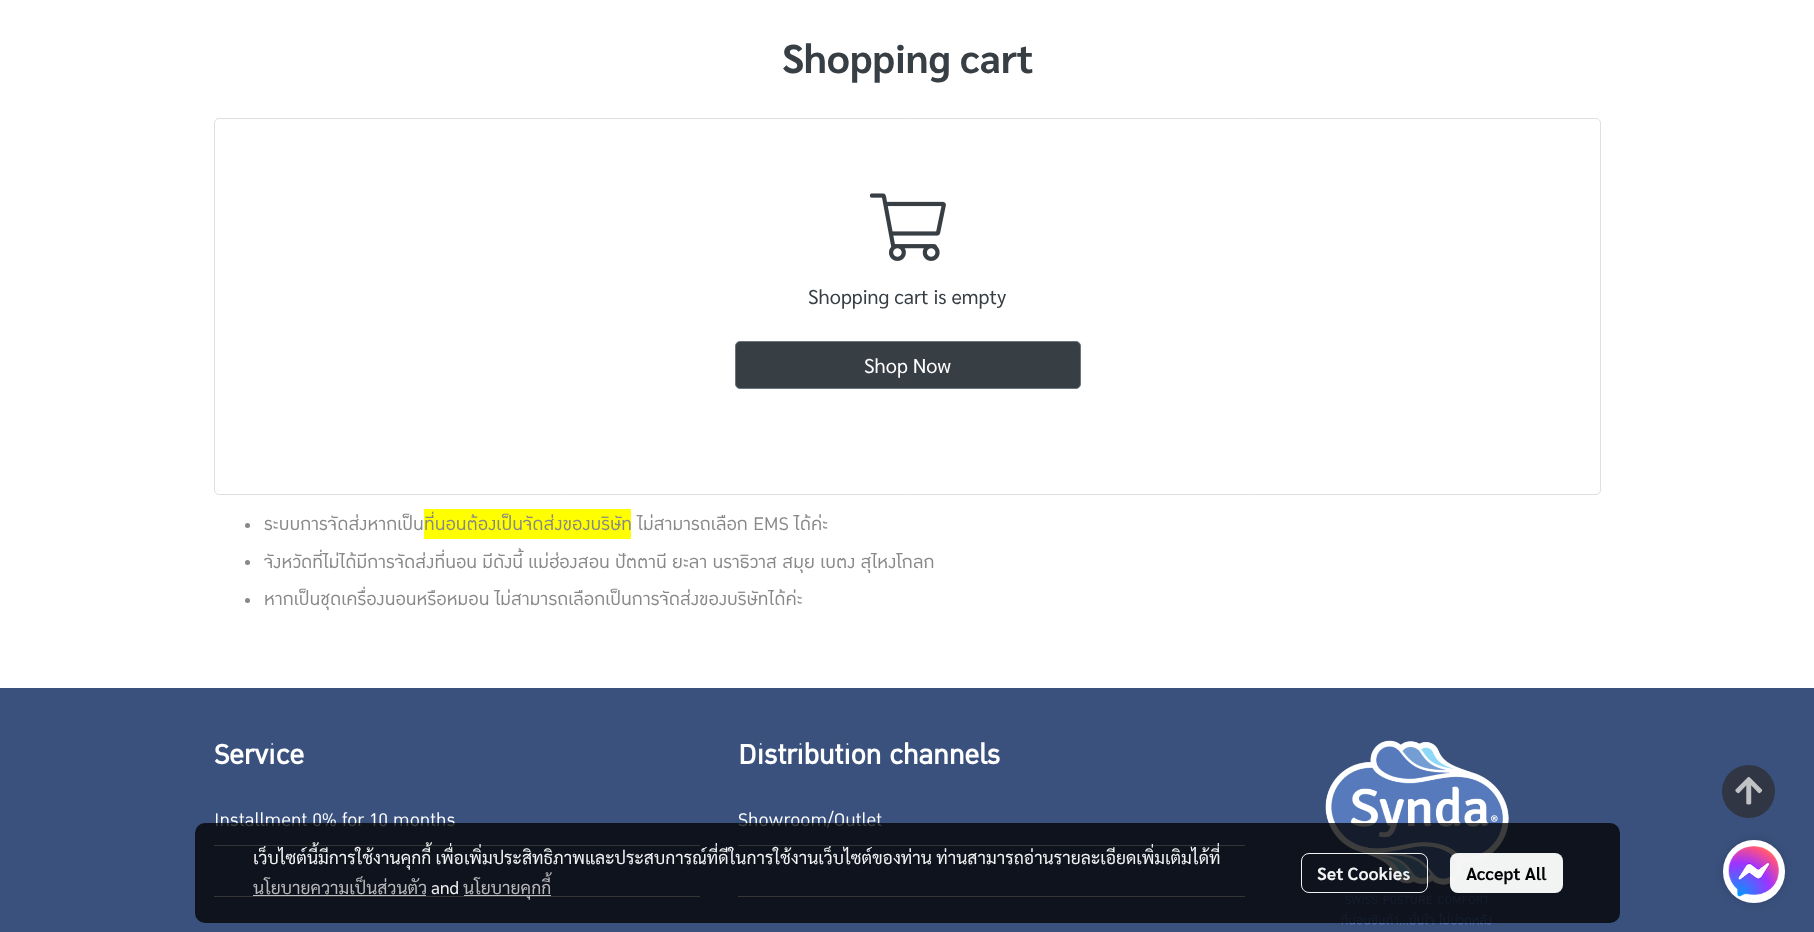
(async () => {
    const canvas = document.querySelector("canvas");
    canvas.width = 1814;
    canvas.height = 932;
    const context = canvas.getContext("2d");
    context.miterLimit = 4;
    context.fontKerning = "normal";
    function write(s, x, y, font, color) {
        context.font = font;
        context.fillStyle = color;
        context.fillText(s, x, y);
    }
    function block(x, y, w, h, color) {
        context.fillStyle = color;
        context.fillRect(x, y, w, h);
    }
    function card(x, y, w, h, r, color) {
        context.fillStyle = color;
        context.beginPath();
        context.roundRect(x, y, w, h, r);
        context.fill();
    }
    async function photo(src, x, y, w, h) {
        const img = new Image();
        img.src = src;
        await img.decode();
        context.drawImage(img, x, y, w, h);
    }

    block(0, 0, 1814, 932, "rgb(255, 255, 255)");
    write("Shopping cart", 782, 73, "bold 40px Sarabun", "rgb(55, 62, 68)");
    context.beginPath();
    context.roundRect(214.5, 118.5, 1386, 376, 4.5);
    context.strokeStyle = "rgb(223, 223, 223)";
    context.stroke();
    await photo("media/1.png", 870, 193, 76, 68);
    write("Shopping cart is empty", 808, 304, "20px Sarabun", "rgb(55, 62, 68)");
    context.beginPath();
    context.roundRect(735.5, 341.5, 345, 47, 4.5);
    context.fill();
    context.strokeStyle = "rgb(108, 117, 125)";
    context.stroke();
    write("Shop Now", 864, 373, "20px Sarabun", "rgb(255, 255, 255)");
    context.fillStyle = "rgb(136, 136, 136)";
    context.beginPath();
    context.arc(247.5, 525.5, 2.5, 0, Math.PI * 2);
    context.fill();
    write("ระบบการจัดส่งหากเป็น", 264, 530, "25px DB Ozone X", "rgb(136, 136, 136)");
    block(424, 509, 207, 30, "rgb(255, 255, 0)");
    write("ที่นอนต้องเป็นจัดส่งของบริษัท ไม่สามารถเลือก EMS ได้ค่ะ", 424, 530, "25px DB Ozone X", "rgb(136, 136, 136)");
    context.beginPath();
    context.arc(247.5, 562.5, 2.5, 0, Math.PI * 2);
    context.fill();
    write("จังหวัดที่ไม่ได้มีการจัดส่งที่นอน มีดังนี้ แม่ฮ่องสอน ปัตตานี ยะลา นราธิวาส สมุย เบตง สุไหงโกลก", 264, 568, "25px DB Ozone X", "rgb(136, 136, 136)");
    context.beginPath();
    context.arc(247.5, 600.5, 2.5, 0, Math.PI * 2);
    context.fill();
    write("หากเป็นชุดเครื่องนอนหรือหมอน ไม่สามารถเลือกเป็นการจัดส่งของบริษัทได้ค่ะ", 264, 605, "25px DB Ozone X", "rgb(136, 136, 136)");
    block(0, 688, 1814, 244, "rgb(58, 81, 125)");
    context.fillStyle = "rgba(0, 0, 0, 0.14)";
    context.filter = "blur(4.5px)";
    context.beginPath();
    context.roundRect(1723, 840, 62, 63, 31);
    context.fill();
    context.filter = "none";
    card(1723, 840, 62, 63, 31, "rgb(255, 255, 255)");
    await photo("media/2.png", 1728, 846, 51, 51);
    write("Service", 214, 764, "bold 37.5px DB Ozone X", "rgb(255, 255, 255)");
    block(214, 845, 486, 1, "rgb(221, 221, 221)");
    write("Installment 0% for 10 months", 214, 826, "25px DB Ozone X", "rgb(255, 255, 255)");
    block(214, 896, 486, 1, "rgb(221, 221, 221)");
    write("Distribution channels", 738, 764, "bold 37.5px DB Ozone X", "rgb(255, 255, 255)");
    block(738, 845, 507, 1, "rgb(221, 221, 221)");
    write("Showroom/Outlet", 738, 826, "25px DB Ozone X", "rgb(255, 255, 255)");
    block(738, 896, 507, 1, "rgb(221, 221, 221)");
    await photo("media/3.png", 1325, 740, 184, 185);
    context.fillStyle = "rgb(48, 54, 67)";
    context.beginPath();
    context.moveTo(1749, 765);
    context.bezierCurveTo(1734, 765, 1722, 777, 1722, 791);
    context.bezierCurveTo(1722, 806, 1734, 818, 1749, 818);
    context.bezierCurveTo(1763, 818, 1775, 806, 1775, 791);
    context.bezierCurveTo(1775, 777, 1763, 765, 1749, 765);
    context.closePath();
    context.fill();
    await photo("media/4.png", 1735, 777, 28, 28);
    card(195, 823, 1425, 100, 10, "rgba(0, 0, 0, 0.76)");
    write("เว็บไซต์นี้มีการใช้งานคุกกี้ เพื่อเพิ่มประสิทธิภาพและประสบการณ์ที่ดีในการใช้งานเว็บไซต์ของท่าน ท่านสามารถอ่านรายละเอียดเพิ่มเติมได้ที่", 253, 864, "17.5px Sarabun", "rgb(243, 243, 244)");
    write("นโยบายความเป็นส่วนตัว", 253, 894, "17.5px Sarabun", "rgb(185, 185, 186)");
    block(253, 895, 173, 1, "rgb(187, 188, 191)");
    write("and", 431, 894, "17.5px Sarabun", "rgb(243, 243, 244)");
    block(464, 895, 87, 1, "rgb(187, 188, 191)");
    write("นโยบายคุกกี้", 463, 894, "17.5px Sarabun", "rgb(185, 185, 186)");
    context.beginPath();
    context.roundRect(1301.5, 853.5, 126, 39, 7.5);
    context.strokeStyle = "rgba(255, 255, 255, 0.95)";
    context.stroke();
    write("Set Cookies", 1317, 880, "bold 17.5px Sarabun", "rgb(243, 243, 244)");
    card(1450, 853, 113, 40, 8, "rgba(255, 255, 255, 0.95)");
    write("Accept All", 1466, 880, "bold 17.5px Sarabun", "rgb(3, 4, 6)");
})();
